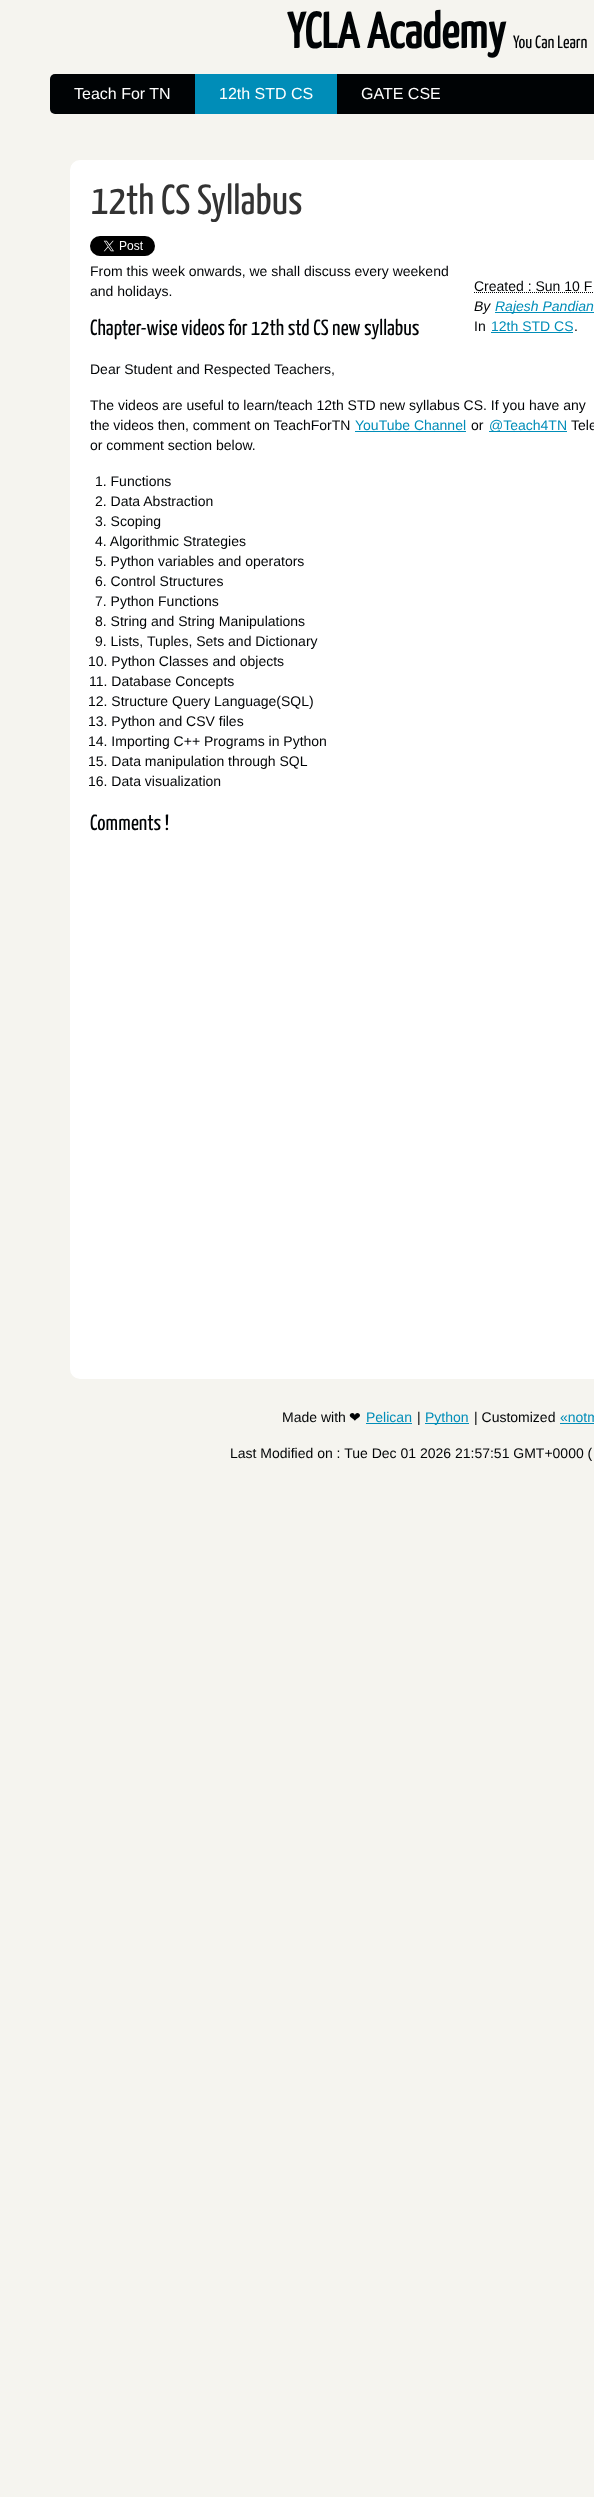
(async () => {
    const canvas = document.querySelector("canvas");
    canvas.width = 594;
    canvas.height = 2497;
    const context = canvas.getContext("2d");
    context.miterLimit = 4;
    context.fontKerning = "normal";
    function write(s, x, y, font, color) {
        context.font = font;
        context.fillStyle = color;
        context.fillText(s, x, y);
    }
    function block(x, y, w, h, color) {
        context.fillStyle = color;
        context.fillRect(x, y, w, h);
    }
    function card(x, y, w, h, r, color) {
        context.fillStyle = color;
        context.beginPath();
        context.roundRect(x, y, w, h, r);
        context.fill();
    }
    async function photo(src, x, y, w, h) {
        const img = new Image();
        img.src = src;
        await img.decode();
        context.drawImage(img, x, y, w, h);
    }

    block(0, 0, 594, 2497, "rgb(245, 244, 239)");
    write("YCLA Academy", 287, 48, "bold 50px Yanone Kaffeesatz", "rgb(0, 3, 5)");
    write("You Can Learn", 513, 48, "200 18px Yanone Kaffeesatz", "rgb(0, 3, 5)");
    card(50, 74, 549, 40, 5, "rgb(0, 3, 5)");
    write("Teach For TN", 74, 99, "16px Liberation Sans", "rgb(255, 255, 255)");
    block(195, 74, 142, 40, "rgb(0, 141, 184)");
    write("12th STD CS", 219, 99, "16px Liberation Sans", "rgb(255, 255, 255)");
    write("GATE CSE", 361, 99, "16px Liberation Sans", "rgb(255, 255, 255)");
    card(70, 160, 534, 1219, 10, "rgb(255, 255, 255)");
    write("12th CS Syllabus", 91, 214, "200 42px Yanone Kaffeesatz", "rgb(51, 51, 51)");
    await photo("media/1.png", 90, 236, 65, 20);
    write("From this week onwards, we shall discuss every weekend", 90, 276, "14px Liberation Sans", "rgb(0, 3, 5)");
    write("and holidays.", 90, 296, "14px Liberation Sans", "rgb(0, 3, 5)");
    write("Created : Sun 10 F", 474, 291, "14px Liberation Sans", "rgb(0, 3, 5)");
    context.beginPath();
    context.moveTo(474, 292.5);
    context.lineTo(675, 292.5);
    context.strokeStyle = "rgb(0, 3, 5)";
    context.setLineDash([1, 1]);
    context.stroke();
    write("By", 474, 311, "italic 14px Liberation Sans", "rgb(0, 3, 5)");
    block(495, 312, 99, 1, "rgb(0, 141, 184)");
    write("Rajesh Pandian", 495, 311, "italic 14px Liberation Sans", "rgb(0, 141, 184)");
    write("In", 474, 331, "14px Liberation Sans", "rgb(0, 3, 5)");
    write("12th STD CS", 491, 331, "14px Liberation Sans", "rgb(0, 141, 184)");
    block(491, 332, 82, 1, "rgb(0, 141, 184)");
    write(".", 574, 331, "14px Liberation Sans", "rgb(0, 3, 5)");
    write("Chapter-wise videos for 12th std CS new syllabus", 90, 335, "200 22px Yanone Kaffeesatz", "rgb(0, 3, 5)");
    write("Dear Student and Respected Teachers,", 90, 374, "14px Liberation Sans", "rgb(0, 3, 5)");
    write("The videos are useful to learn/teach 12th STD new syllabus CS. If you have any", 90, 410, "14px Liberation Sans", "rgb(0, 3, 5)");
    write("the videos then, comment on TeachForTN", 90, 430, "14px Liberation Sans", "rgb(0, 3, 5)");
    write("YouTube Channel", 355, 430, "14px Liberation Sans", "rgb(0, 141, 184)");
    block(355, 431, 111, 1, "rgb(0, 141, 184)");
    write("or", 471, 430, "14px Liberation Sans", "rgb(0, 3, 5)");
    block(489, 431, 78, 1, "rgb(0, 141, 184)");
    write("@Teach4TN", 489, 430, "14px Liberation Sans", "rgb(0, 141, 184)");
    write("Tele", 571, 430, "14px Liberation Sans", "rgb(0, 3, 5)");
    write("or comment section below.", 90, 450, "14px Liberation Sans", "rgb(0, 3, 5)");
    write("1. Functions", 95, 486, "14px Liberation Sans", "rgb(0, 3, 5)");
    write("2. Data Abstraction", 95, 506, "14px Liberation Sans", "rgb(0, 3, 5)");
    write("3. Scoping", 95, 526, "14px Liberation Sans", "rgb(0, 3, 5)");
    write("4. Algorithmic Strategies", 95, 546, "14px Liberation Sans", "rgb(0, 3, 5)");
    write("5. Python variables and operators", 95, 566, "14px Liberation Sans", "rgb(0, 3, 5)");
    write("6. Control Structures", 95, 586, "14px Liberation Sans", "rgb(0, 3, 5)");
    write("7. Python Functions", 95, 606, "14px Liberation Sans", "rgb(0, 3, 5)");
    write("8. String and String Manipulations", 95, 626, "14px Liberation Sans", "rgb(0, 3, 5)");
    write("9. Lists, Tuples, Sets and Dictionary", 95, 646, "14px Liberation Sans", "rgb(0, 3, 5)");
    write("10. Python Classes and objects", 88, 666, "14px Liberation Sans", "rgb(0, 3, 5)");
    write("11. Database Concepts", 89, 686, "14px Liberation Sans", "rgb(0, 3, 5)");
    write("12. Structure Query Language(SQL)", 88, 706, "14px Liberation Sans", "rgb(0, 3, 5)");
    write("13. Python and CSV files", 88, 726, "14px Liberation Sans", "rgb(0, 3, 5)");
    write("14. Importing C++ Programs in Python", 88, 746, "14px Liberation Sans", "rgb(0, 3, 5)");
    write("15. Data manipulation through SQL", 88, 766, "14px Liberation Sans", "rgb(0, 3, 5)");
    write("16. Data visualization", 88, 786, "14px Liberation Sans", "rgb(0, 3, 5)");
    write("Comments !", 90, 830, "200 22px Yanone Kaffeesatz", "rgb(0, 3, 5)");
    write("Made with", 282, 1422, "14px Liberation Sans", "rgb(0, 3, 5)");
    write("❤", 349, 1422, "14px DejaVu Sans", "rgb(0, 3, 5)");
    write("Pelican", 366, 1422, "14px Liberation Sans", "rgb(0, 141, 184)");
    block(366, 1423, 46, 1, "rgb(0, 141, 184)");
    write("|", 417, 1422, "14px Liberation Sans", "rgb(0, 3, 5)");
    block(425, 1423, 44, 1, "rgb(0, 141, 184)");
    write("Python", 425, 1422, "14px Liberation Sans", "rgb(0, 141, 184)");
    write("| Customized", 474, 1422, "14px Liberation Sans", "rgb(0, 3, 5)");
    write("«notm", 560, 1422, "14px Liberation Sans", "rgb(0, 141, 184)");
    block(560, 1423, 34, 1, "rgb(0, 141, 184)");
    write("Last Modified on : Tue Dec 01 2026 21:57:51 GMT+0000 (", 230, 1458, "14px Liberation Sans", "rgb(0, 3, 5)");
})();
